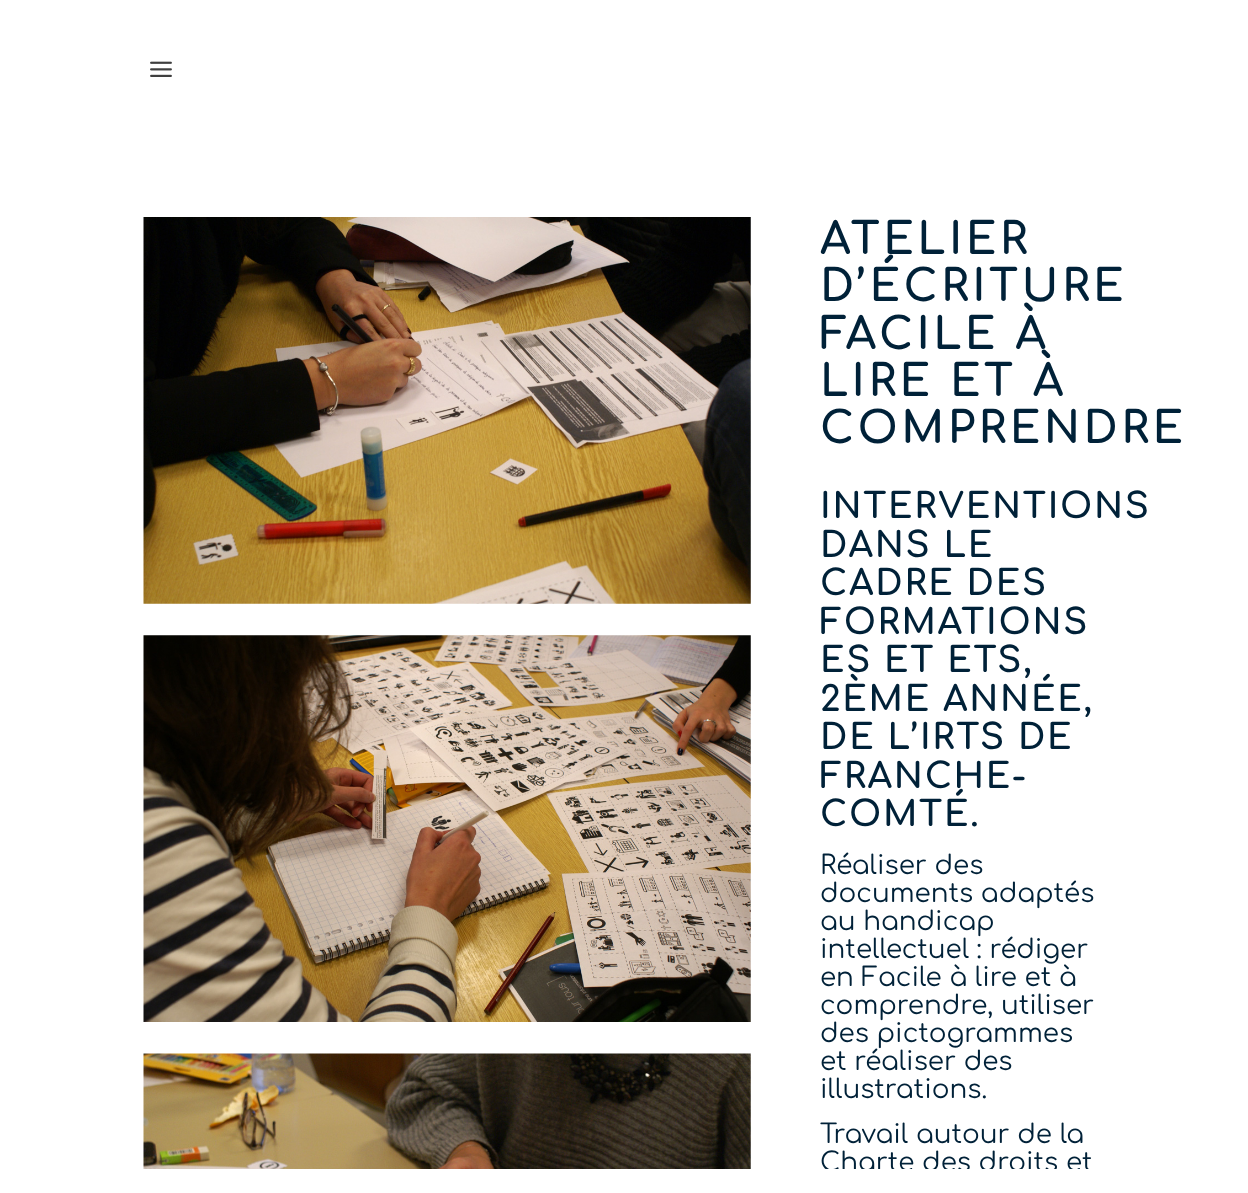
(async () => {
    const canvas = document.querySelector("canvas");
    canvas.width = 1248;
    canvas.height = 1193;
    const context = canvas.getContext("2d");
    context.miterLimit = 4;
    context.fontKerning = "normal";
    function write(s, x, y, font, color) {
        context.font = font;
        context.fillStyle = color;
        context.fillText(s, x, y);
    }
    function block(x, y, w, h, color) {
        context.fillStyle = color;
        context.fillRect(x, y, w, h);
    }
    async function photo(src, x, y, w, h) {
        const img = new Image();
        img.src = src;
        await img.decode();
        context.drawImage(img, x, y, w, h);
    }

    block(0, 0, 1248, 1193, "rgb(255, 255, 255)");
    await photo("media/1.png", 150, 61, 22, 16);
    await photo("media/2.png", 143, 217, 608, 387);
    await photo("media/3.png", 143, 635, 608, 387);
    await photo("media/4.png", 143, 1053, 608, 116);
    context.letterSpacing = "3.5px";
    write("ATELIER", 820, 254, "bold 43.75px Comfortaa", "rgb(0, 33, 56)");
    write("D’ÉCRITURE", 820, 301, "bold 43.75px Comfortaa", "rgb(0, 33, 56)");
    write("FACILE À", 820, 349, "bold 43.75px Comfortaa", "rgb(0, 33, 56)");
    write("LIRE ET À", 820, 396, "bold 43.75px Comfortaa", "rgb(0, 33, 56)");
    write("COMPRENDRE", 820, 443, "bold 43.75px Comfortaa", "rgb(0, 33, 56)");
    context.letterSpacing = "1.75px";
    write("INTERVENTIONS", 820, 518, "bold 35px Comfortaa", "rgb(0, 33, 56)");
    write("DANS LE", 820, 557, "bold 35px Comfortaa", "rgb(0, 33, 56)");
    write("CADRE DES", 820, 595, "bold 35px Comfortaa", "rgb(0, 33, 56)");
    write("FORMATIONS", 820, 634, "bold 35px Comfortaa", "rgb(0, 33, 56)");
    write("ES ET ETS,", 820, 672, "bold 35px Comfortaa", "rgb(0, 33, 56)");
    write("2ÈME ANNÉE,", 820, 711, "bold 35px Comfortaa", "rgb(0, 33, 56)");
    write("DE L’IRTS DE", 820, 749, "bold 35px Comfortaa", "rgb(0, 33, 56)");
    write("FRANCHE-", 820, 788, "bold 35px Comfortaa", "rgb(0, 33, 56)");
    write("COMTÉ.", 820, 826, "bold 35px Comfortaa", "rgb(0, 33, 56)");
    context.letterSpacing = "0px";
    write("Réaliser des", 820, 874, "26.25px Comfortaa", "rgb(0, 33, 56)");
    write("documents adaptés", 820, 902, "26.25px Comfortaa", "rgb(0, 33, 56)");
    write("au handicap", 820, 930, "26.25px Comfortaa", "rgb(0, 33, 56)");
    write("intellectuel : rédiger", 820, 958, "26.25px Comfortaa", "rgb(0, 33, 56)");
    write("en Facile à lire et à", 820, 986, "26.25px Comfortaa", "rgb(0, 33, 56)");
    write("comprendre, utiliser", 820, 1014, "26.25px Comfortaa", "rgb(0, 33, 56)");
    write("des pictogrammes", 820, 1042, "26.25px Comfortaa", "rgb(0, 33, 56)");
    write("et réaliser des", 820, 1070, "26.25px Comfortaa", "rgb(0, 33, 56)");
    write("illustrations.", 820, 1098, "26.25px Comfortaa", "rgb(0, 33, 56)");
    write("Travail autour de la", 820, 1143, "26.25px Comfortaa", "rgb(0, 33, 56)");
    write("Charte des droits et", 820, 1171, "26.25px Comfortaa", "rgb(0, 33, 56)");
    block(825, 1169, 267, 3, "rgb(255, 255, 255)");
})();
